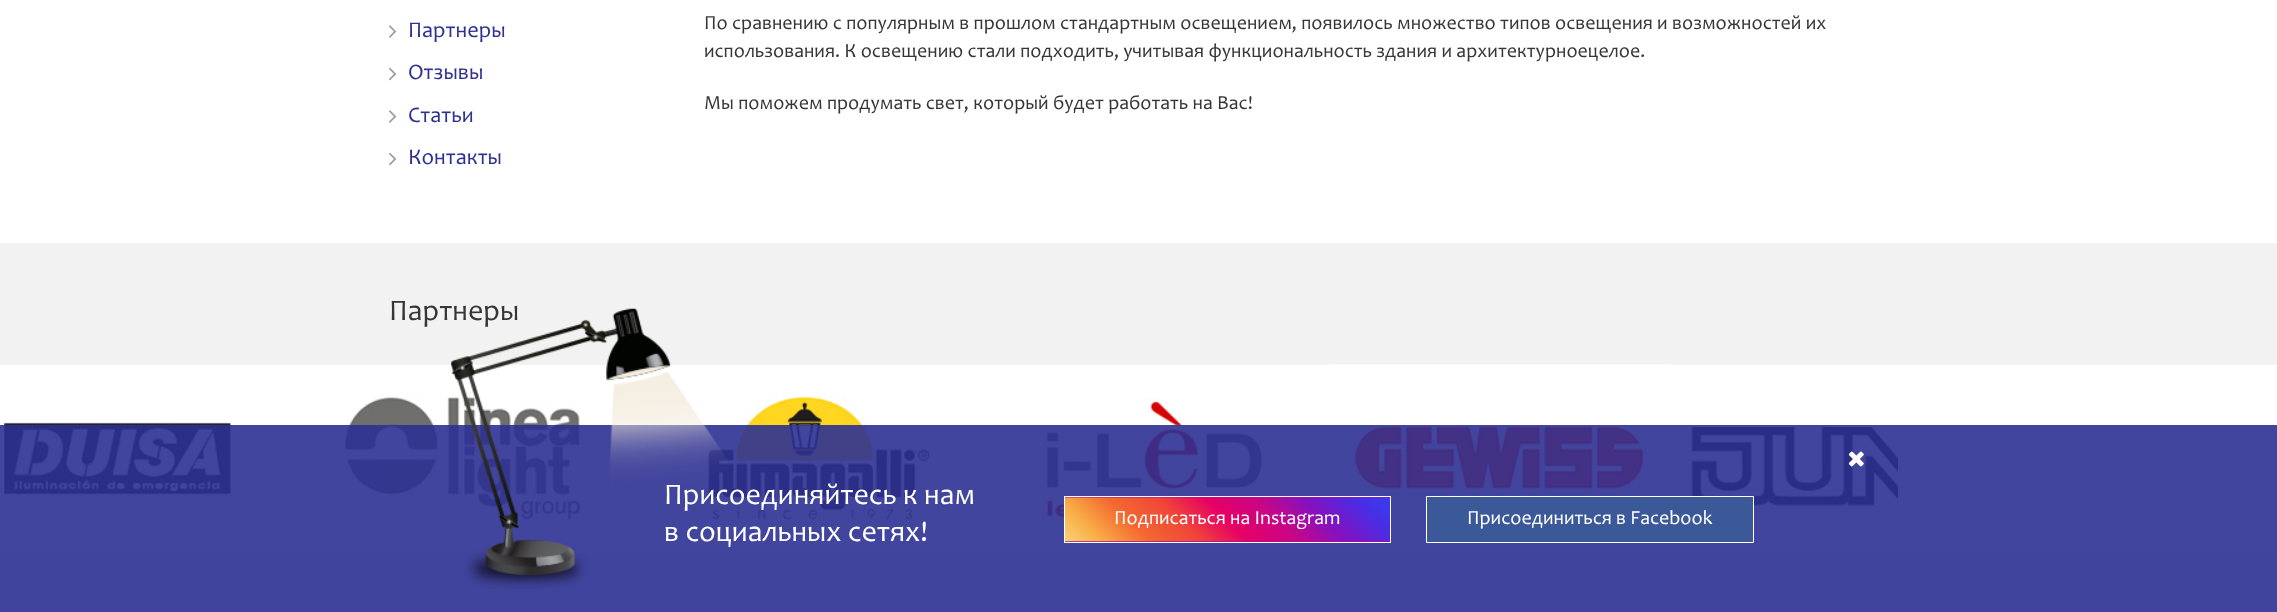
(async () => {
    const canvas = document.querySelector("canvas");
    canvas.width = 2277;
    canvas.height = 612;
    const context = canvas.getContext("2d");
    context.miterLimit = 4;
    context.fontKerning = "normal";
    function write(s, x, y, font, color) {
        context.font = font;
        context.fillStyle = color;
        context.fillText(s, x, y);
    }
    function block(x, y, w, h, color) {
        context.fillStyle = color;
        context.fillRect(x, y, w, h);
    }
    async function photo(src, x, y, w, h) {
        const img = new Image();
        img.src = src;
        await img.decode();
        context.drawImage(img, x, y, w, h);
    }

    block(0, 0, 2277, 612, "rgb(255, 255, 255)");
    await photo("media/1.png", 389, 25, 8, 13);
    write("Партнеры", 408, 37, "22.5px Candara", "rgb(46, 49, 146)");
    await photo("media/2.png", 389, 67, 8, 14);
    write("Отзывы", 408, 79, "22.5px Candara", "rgb(46, 49, 146)");
    await photo("media/1.png", 389, 110, 8, 13);
    write("Статьи", 408, 122, "22.5px Candara", "rgb(46, 49, 146)");
    await photo("media/2.png", 389, 152, 8, 14);
    write("Контакты", 408, 164, "22.5px Candara", "rgb(46, 49, 146)");
    write("По сравнению с популярным в прошлом стандартным освещением, появилось множество типов освещения и возможностей их", 704, 29, "20px Candara", "rgb(54, 54, 54)");
    write("использования. К освещению стали подходить, учитывая функциональность здания и архитектурноецелое.", 704, 57, "20px Candara", "rgb(54, 54, 54)");
    write("Мы поможем продумать свет, который будет работать на Вас!", 704, 109, "20px Candara", "rgb(54, 54, 54)");
    block(0, 243, 2277, 369, "rgb(242, 242, 242)");
    write("Партнеры", 389, 320, "30px Candara", "rgb(54, 54, 54)");
    block(0, 365, 2277, 188, "rgb(255, 255, 255)");
    await photo("media/3.png", 4, 422, 227, 73);
    await photo("media/4.png", 344, 396, 237, 124);
    await photo("media/5.png", 707, 396, 223, 124);
    await photo("media/6.png", 1046, 397, 216, 126);
    await photo("media/7.png", 1328, 364, 344, 125);
    await photo("media/8.png", 1690, 425, 208, 86);
    block(0, 425, 2277, 187, "rgba(46, 49, 146, 0.9)");
    write("Присоединяйтесь к нам", 664, 504, "30px Candara", "rgb(255, 255, 255)");
    write("в социальных сетях!", 664, 541, "30px Candara", "rgb(255, 255, 255)");
    await photo("media/9.png", 451, 308, 278, 281);
    await photo("media/10.png", 1848, 451, 16, 16);
    block(1065, 497, 325, 45, "rgb(167, 12, 163)");
    await photo("media/11.png", 1065, 497, 325, 45);
    context.strokeStyle = "rgb(255, 255, 255)";
    context.strokeRect(1064.5, 496.5, 326, 46);
    write("Подписаться на Instagram", 1114, 524, "20px Candara", "rgb(255, 255, 255)");
    context.fillStyle = "rgb(59, 89, 152)";
    context.beginPath();
    context.rect(1426.5, 496.5, 327, 46);
    context.fill();
    context.stroke();
    write("Присоединиться в Facebook", 1467, 524, "20px Candara", "rgb(255, 255, 255)");
})();
